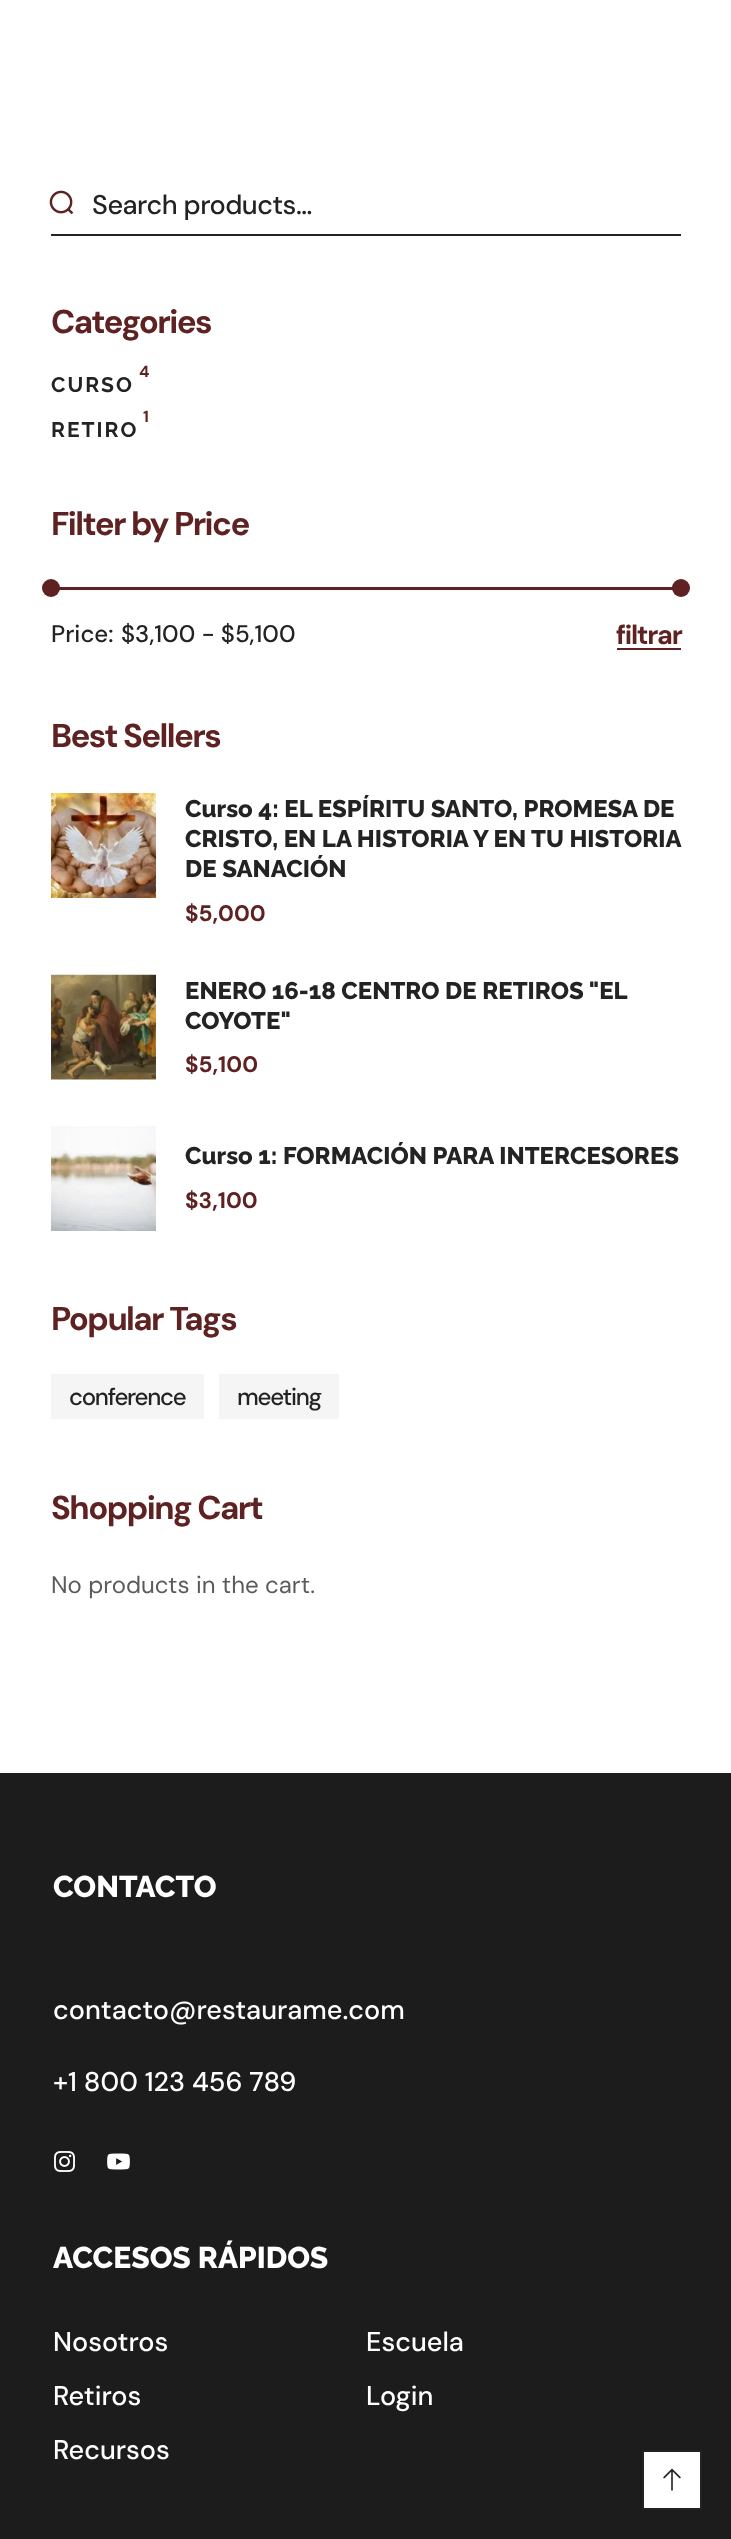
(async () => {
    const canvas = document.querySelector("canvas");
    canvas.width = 731;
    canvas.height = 2539;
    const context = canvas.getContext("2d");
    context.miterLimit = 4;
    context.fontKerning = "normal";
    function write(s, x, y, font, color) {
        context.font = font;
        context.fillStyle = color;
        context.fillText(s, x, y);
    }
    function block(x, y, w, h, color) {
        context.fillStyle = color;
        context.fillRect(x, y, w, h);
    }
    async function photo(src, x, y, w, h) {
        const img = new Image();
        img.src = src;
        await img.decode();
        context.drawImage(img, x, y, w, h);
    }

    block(0, 0, 731, 2539, "rgb(255, 255, 255)");
    await photo("media/1.png", 49, 190, 25, 25);
    block(51, 234, 630, 2, "rgb(35, 35, 35)");
    context.letterSpacing = "-0.5px";
    write("Search products…", 92, 214, "500 27px DM Sans", "rgb(35, 35, 35)");
    context.letterSpacing = "-1.6px";
    write("Categories", 51, 333, "bold 33px DM Sans", "rgb(94, 34, 35)");
    context.letterSpacing = "0px";
    write("4", 139, 377, "bold 16px DM Sans", "rgb(94, 34, 35)");
    context.letterSpacing = "2px";
    write("CURSO", 51, 392, "bold 21px Raleway", "rgb(35, 35, 35)");
    context.letterSpacing = "0px";
    write("1", 143, 422, "bold 16px DM Sans", "rgb(94, 34, 35)");
    context.letterSpacing = "2px";
    write("RETIRO", 51, 437, "bold 21px Raleway", "rgb(35, 35, 35)");
    context.letterSpacing = "-1.6px";
    write("Filter by Price", 51, 535, "bold 33px DM Sans", "rgb(94, 34, 35)");
    block(51, 587, 630, 3, "rgb(94, 34, 35)");
    context.beginPath();
    context.arc(51, 588, 9, 0, Math.PI * 2);
    context.fill();
    context.beginPath();
    context.arc(681, 588, 9, 0, Math.PI * 2);
    context.fill();
    context.letterSpacing = "0px";
    write("Price:", 51, 642, "500 24px DM Sans", "rgb(35, 35, 35)");
    write("$3,100 - $5,100", 121, 642, "500 24px DM Sans", "rgb(35, 35, 35)");
    context.letterSpacing = "-1.25px";
    write("filtrar", 616, 644, "bold 27px DM Sans", "rgb(94, 34, 35)");
    block(617, 648, 64, 2, "rgb(94, 34, 35)");
    context.letterSpacing = "-1.6px";
    write("Best Sellers", 51, 747, "bold 33px DM Sans", "rgb(94, 34, 35)");
    await photo("media/2.png", 51, 793, 105, 105);
    context.letterSpacing = "0px";
    write("Curso 4: EL ESPÍRITU SANTO, PROMESA DE", 185, 817, "800 24px Raleway", "rgb(35, 35, 35)");
    write("CRISTO, EN LA HISTORIA Y EN TU HISTORIA", 185, 847, "800 24px Raleway", "rgb(35, 35, 35)");
    write("DE SANACIÓN", 185, 877, "800 24px Raleway", "rgb(35, 35, 35)");
    write("$5,000", 185, 921, "bold 22.5px DM Sans", "rgb(94, 34, 35)");
    await photo("media/3.png", 51, 974, 105, 106);
    write("ENERO 16-18 CENTRO DE RETIROS \"EL", 185, 999, "800 24px Raleway", "rgb(35, 35, 35)");
    write("COYOTE\"", 185, 1029, "800 24px Raleway", "rgb(35, 35, 35)");
    write("$5,100", 185, 1072, "bold 22.5px DM Sans", "rgb(94, 34, 35)");
    await photo("media/4.png", 51, 1126, 105, 105);
    write("Curso 1: FORMACIÓN PARA INTERCESORES", 185, 1164, "800 24px Raleway", "rgb(35, 35, 35)");
    write("$3,100", 185, 1208, "bold 22.5px DM Sans", "rgb(94, 34, 35)");
    context.letterSpacing = "-1.6px";
    write("Popular Tags", 51, 1330, "bold 33px DM Sans", "rgb(94, 34, 35)");
    block(51, 1374, 153, 45, "rgb(245, 245, 245)");
    context.letterSpacing = "-1.25px";
    write("conference", 69, 1405, "500 24px DM Sans", "rgb(35, 35, 35)");
    block(219, 1374, 120, 45, "rgb(245, 245, 245)");
    write("meeting", 237, 1405, "500 24px DM Sans", "rgb(35, 35, 35)");
    context.letterSpacing = "-1.6px";
    write("Shopping Cart", 51, 1519, "bold 33px DM Sans", "rgb(94, 34, 35)");
    context.letterSpacing = "0px";
    write("No products in the cart.", 51, 1593, "24px DM Sans", "rgb(91, 91, 91)");
    block(0, 1773, 731, 766, "rgb(28, 28, 28)");
    write("CONTACTO", 53, 1897, "800 30px Raleway", "rgb(255, 255, 255)");
    write("contacto@restaurame.com", 53, 2019, "500 27px DM Sans", "rgb(255, 255, 255)");
    write("+1 800 123 456 789", 53, 2091, "500 27px DM Sans", "rgb(255, 255, 255)");
    await photo("media/5.png", 54, 2151, 21, 21);
    await photo("media/6.png", 107, 2153, 23, 17);
    write("ACCESOS RÁPIDOS", 53, 2268, "800 30px Raleway", "rgb(255, 255, 255)");
    write("Nosotros", 53, 2351, "500 27px DM Sans", "rgb(255, 255, 255)");
    write("Retiros", 53, 2405, "500 27px DM Sans", "rgb(255, 255, 255)");
    write("Recursos", 53, 2459, "500 27px DM Sans", "rgb(255, 255, 255)");
    write("Escuela", 366, 2351, "500 27px DM Sans", "rgb(255, 255, 255)");
    write("Login", 366, 2405, "500 27px DM Sans", "rgb(255, 255, 255)");
    context.beginPath();
    context.rect(643, 2451, 58, 58);
    context.fill();
    context.strokeStyle = "rgb(35, 35, 35)";
    context.lineWidth = 2;
    context.stroke();
    await photo("media/7.png", 663, 2468, 18, 23);
})();
